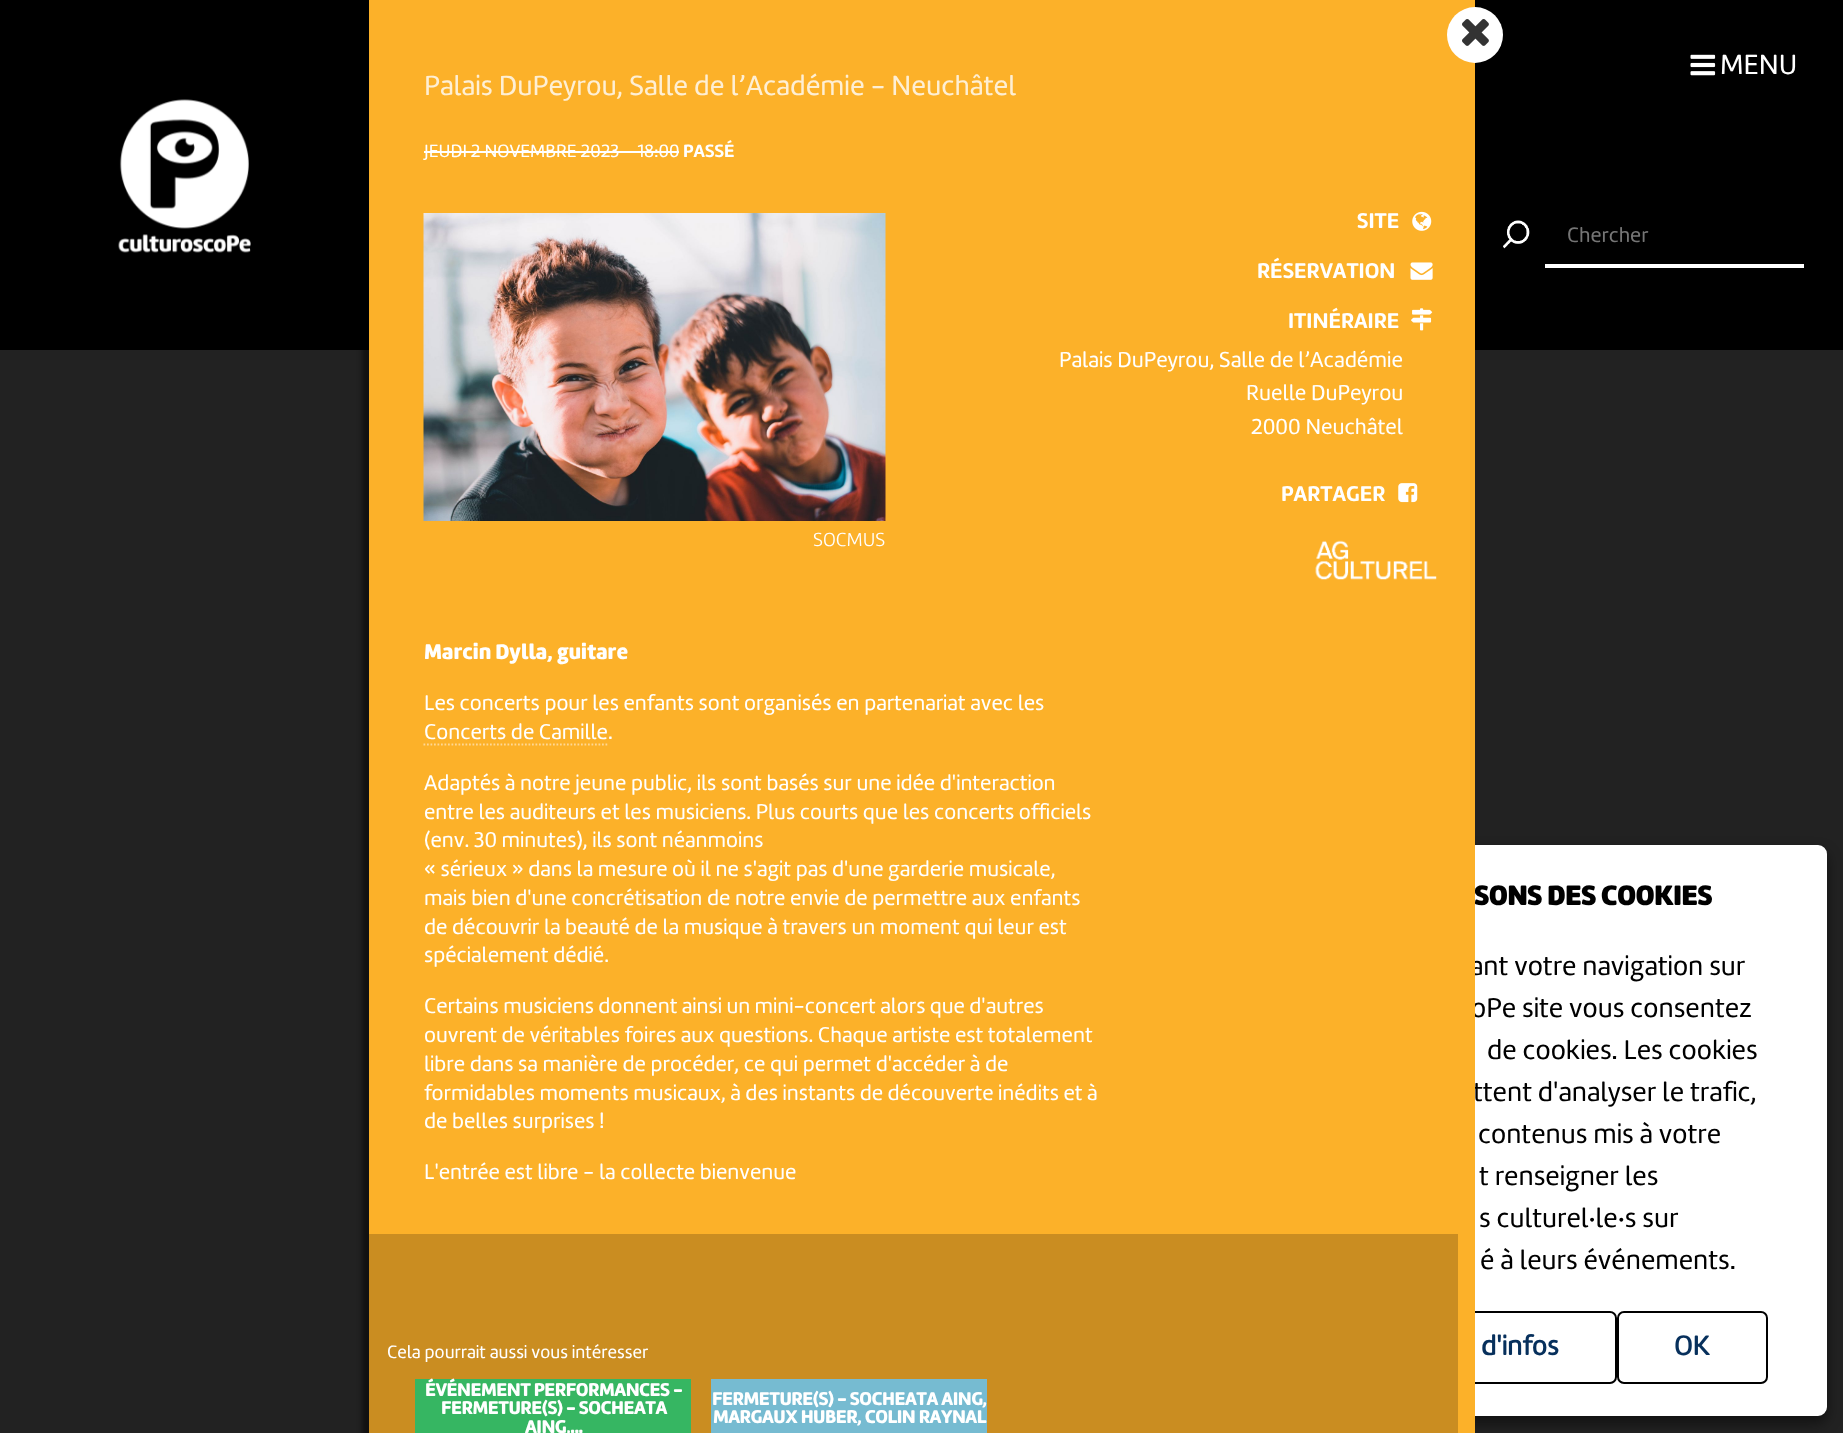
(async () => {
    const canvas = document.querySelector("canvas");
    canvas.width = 1843;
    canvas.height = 1433;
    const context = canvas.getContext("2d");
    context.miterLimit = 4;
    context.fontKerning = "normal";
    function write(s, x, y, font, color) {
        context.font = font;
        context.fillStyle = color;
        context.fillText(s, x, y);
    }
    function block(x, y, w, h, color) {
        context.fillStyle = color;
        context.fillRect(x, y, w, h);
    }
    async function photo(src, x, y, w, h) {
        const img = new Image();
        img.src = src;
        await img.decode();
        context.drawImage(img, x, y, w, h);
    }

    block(0, 0, 1843, 1433, "rgb(34, 34, 34)");
    block(0, 0, 1843, 350, "rgb(0, 0, 0)");
    await photo("media/1.png", 1690, 54, 26, 22);
    write("MENU", 1720, 74, "28.7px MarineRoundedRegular", "rgb(255, 255, 255)");
    await photo("media/2.png", 118, 99, 133, 154);
    context.fillStyle = "rgba(0, 0, 0, 0.5)";
    context.filter = "blur(7px)";
    context.beginPath();
    context.roundRect(1274, 852, 553, 571, 9);
    context.fill();
    context.filter = "none";
    context.fillStyle = "rgb(255, 255, 255)";
    context.beginPath();
    context.roundRect(1276, 847, 549, 567, 7);
    context.fill();
    context.strokeStyle = "rgb(255, 255, 255)";
    context.lineWidth = 4;
    context.stroke();
    context.beginPath();
    context.roundRect(1368, 1312, 248, 71, 6);
    context.strokeStyle = "rgb(0, 0, 0)";
    context.lineWidth = 2;
    context.stroke();
    context.fillStyle = "rgba(0, 0, 0, 0.5)";
    context.filter = "blur(2.5px)";
    context.beginPath();
    context.rect(362, -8, 1106, 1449);
    context.fill();
    context.filter = "none";
    write("SONS DES COOKIES", 1474, 905, "bold 28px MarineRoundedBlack", "rgb(0, 0, 0)");
    write("ant votre navigation sur", 1470, 975, "28px MarineRoundedRegular", "rgb(0, 0, 0)");
    write("oPe site vous consentez", 1471, 1017, "28px MarineRoundedRegular", "rgb(0, 0, 0)");
    write("ttent d'analyser le trafic,", 1473, 1101, "28px MarineRoundedRegular", "rgb(0, 0, 0)");
    block(369, 0, 1106, 1433, "rgb(252, 177, 41)");
    context.fillStyle = "rgb(255, 255, 255)";
    context.beginPath();
    context.arc(1475, 35, 28, 0, Math.PI * 2);
    context.fill();
    await photo("media/3.png", 1462, 19, 27, 27);
    write("Palais DuPeyrou, Salle de l’Académie - Neuchâtel", 424, 95, "28.7px MarineRoundedRegular", "rgb(254, 239, 212)");
    write("JEUDI 2 NOVEMBRE 2023 – 18:00", 424, 157, "18.5px MarineRoundedRegular", "rgb(255, 255, 255)");
    block(424, 151, 255, 2, "rgb(255, 255, 255)");
    write("PASSÉ", 683, 157, "18.5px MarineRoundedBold", "rgb(255, 255, 255)");
    write("SITE", 1357, 228, "22.1px MarineRoundedBold", "rgb(255, 255, 255)");
    await photo("media/4.png", 1412, 211, 20, 20);
    write("RÉSERVATION", 1257, 278, "22.1px MarineRoundedBold", "rgb(255, 255, 255)");
    await photo("media/5.png", 1410, 262, 23, 18);
    write("ITINÉRAIRE", 1288, 328, "22.1px MarineRoundedBold", "rgb(255, 255, 255)");
    await photo("media/6.png", 1411, 308, 22, 23);
    write("Palais DuPeyrou, Salle de l’Académie", 1059, 367, "22.4px MarineRoundedRegular", "rgb(255, 255, 255)");
    write("Ruelle DuPeyrou", 1246, 400, "22.4px MarineRoundedRegular", "rgb(255, 255, 255)");
    write("2000 Neuchâtel", 1251, 434, "22.4px MarineRoundedRegular", "rgb(255, 255, 255)");
    write("PARTAGER", 1281, 501, "22.1px MarineRoundedBold", "rgb(255, 255, 255)");
    await photo("media/7.png", 1398, 483, 20, 20);
    await photo("media/8.png", 1315, 540, 122, 40);
    await photo("media/9.png", 423, 213, 463, 308);
    write("SOCMUS", 813, 546, "19.5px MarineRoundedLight", "rgb(255, 255, 255)");
    write("Marcin Dylla, guitare", 424, 659, "22.1px MarineRoundedBlack", "rgb(255, 255, 255)");
    write("Les concerts pour les enfants sont organisés en partenariat avec les", 424, 710, "22.1px MarineRoundedRegular", "rgb(255, 255, 255)");
    write("Concerts de Camille", 424, 739, "22.1px MarineRoundedRegular", "rgb(255, 255, 255)");
    context.beginPath();
    context.moveTo(423.5, 744.5);
    context.lineTo(609, 744.5);
    context.strokeStyle = "rgb(254, 216, 148)";
    context.lineWidth = 1.8;
    context.setLineDash([1.75, 1.75]);
    context.stroke();
    write(".", 608, 739, "22.1px MarineRoundedRegular", "rgb(255, 255, 255)");
    write("Adaptés à notre jeune public, ils sont basés sur une idée d'interaction", 424, 790, "22.1px MarineRoundedRegular", "rgb(255, 255, 255)");
    write("entre les auditeurs et les musiciens. Plus courts que les concerts officiels", 424, 819, "22.1px MarineRoundedRegular", "rgb(255, 255, 255)");
    context.wordSpacing = "-0.1px";
    write("(env. 30 minutes), ils sont néanmoins", 424, 847, "22.1px MarineRoundedRegular", "rgb(255, 255, 255)");
    context.wordSpacing = "0px";
    write("« sérieux » dans la mesure où il ne s'agit pas d'une garderie musicale,", 424, 876, "22.1px MarineRoundedRegular", "rgb(255, 255, 255)");
    write("mais bien d'une concrétisation de notre envie de permettre aux enfants", 424, 905, "22.1px MarineRoundedRegular", "rgb(255, 255, 255)");
    write("de découvrir la beauté de la musique à travers un moment qui leur est", 424, 934, "22.1px MarineRoundedRegular", "rgb(255, 255, 255)");
    write("spécialement dédié.", 424, 962, "22.1px MarineRoundedRegular", "rgb(255, 255, 255)");
    context.wordSpacing = "-0.25px";
    write("Certains musiciens donnent ainsi un mini-concert alors que d'autres", 424, 1013, "22.1px MarineRoundedRegular", "rgb(255, 255, 255)");
    context.wordSpacing = "-0.1px";
    write("ouvrent de véritables foires aux questions. Chaque artiste est totalement", 424, 1042, "22.1px MarineRoundedRegular", "rgb(255, 255, 255)");
    context.wordSpacing = "0px";
    write("libre dans sa manière de procéder, ce qui permet d'accéder à de", 424, 1071, "22.1px MarineRoundedRegular", "rgb(255, 255, 255)");
    context.wordSpacing = "-0.1px";
    write("formidables moments musicaux, à des instants de découverte inédits et à", 424, 1100, "22.1px MarineRoundedRegular", "rgb(255, 255, 255)");
    context.wordSpacing = "0px";
    write("de belles surprises !", 424, 1128, "22.1px MarineRoundedRegular", "rgb(255, 255, 255)");
    write("L'entrée est libre - la collecte bienvenue", 424, 1179, "22.1px MarineRoundedRegular", "rgb(255, 255, 255)");
    block(369, 1234, 1089, 199, "rgb(202, 141, 33)");
    write("Cela pourrait aussi vous intéresser", 387, 1358, "18.5px MarineRoundedRegular", "rgb(255, 255, 255)");
    block(415, 1379, 276, 54, "rgb(54, 182, 98)");
    write("ÉVÉNEMENT PERFORMANCES -", 425, 1396, "bold 18.5px MarineRoundedBold", "rgb(255, 255, 255)");
    write("FERMETURE(S) - SOCHEATA", 441, 1414, "bold 18.5px MarineRoundedBold", "rgb(255, 255, 255)");
    write("AING,...", 525, 1433, "bold 18.5px MarineRoundedBold", "rgb(255, 255, 255)");
    block(711, 1379, 276, 54, "rgb(118, 187, 209)");
    write("FERMETURE(S) - SOCHEATA AING,", 712, 1405, "bold 18.5px MarineRoundedBold", "rgb(255, 255, 255)");
    write("MARGAUX HUBER, COLIN RAYNAL", 713, 1423, "bold 18.5px MarineRoundedBold", "rgb(255, 255, 255)");
    await photo("media/10.png", 1503, 220, 27, 29);
    block(1545, 264, 259, 4, "rgb(255, 255, 255)");
    write("Chercher", 1567, 242, "21.5px MarineRoundedRegular", "rgb(117, 117, 117)");
    write("de cookies. Les cookies", 1487, 1059, "28px MarineRoundedRegular", "rgb(0, 0, 0)");
    write("contenus mis à votre", 1478, 1143, "28px MarineRoundedRegular", "rgb(0, 0, 0)");
    write("t renseigner les", 1479, 1185, "28px MarineRoundedRegular", "rgb(0, 0, 0)");
    write("s culturel·le·s sur", 1479, 1227, "28px MarineRoundedRegular", "rgb(0, 0, 0)");
    write("é à leurs événements.", 1480, 1269, "28px MarineRoundedRegular", "rgb(0, 0, 0)");
    write("d'infos", 1481, 1355, "bold 28px MarineRoundedRegular", "rgb(7, 48, 92)");
    context.beginPath();
    context.roundRect(1618, 1312, 149, 71, 6);
    context.strokeStyle = "rgb(0, 0, 0)";
    context.lineWidth = 2;
    context.setLineDash([]);
    context.stroke();
    write("OK", 1674, 1355, "bold 28px MarineRoundedRegular", "rgb(7, 48, 92)");
})();
